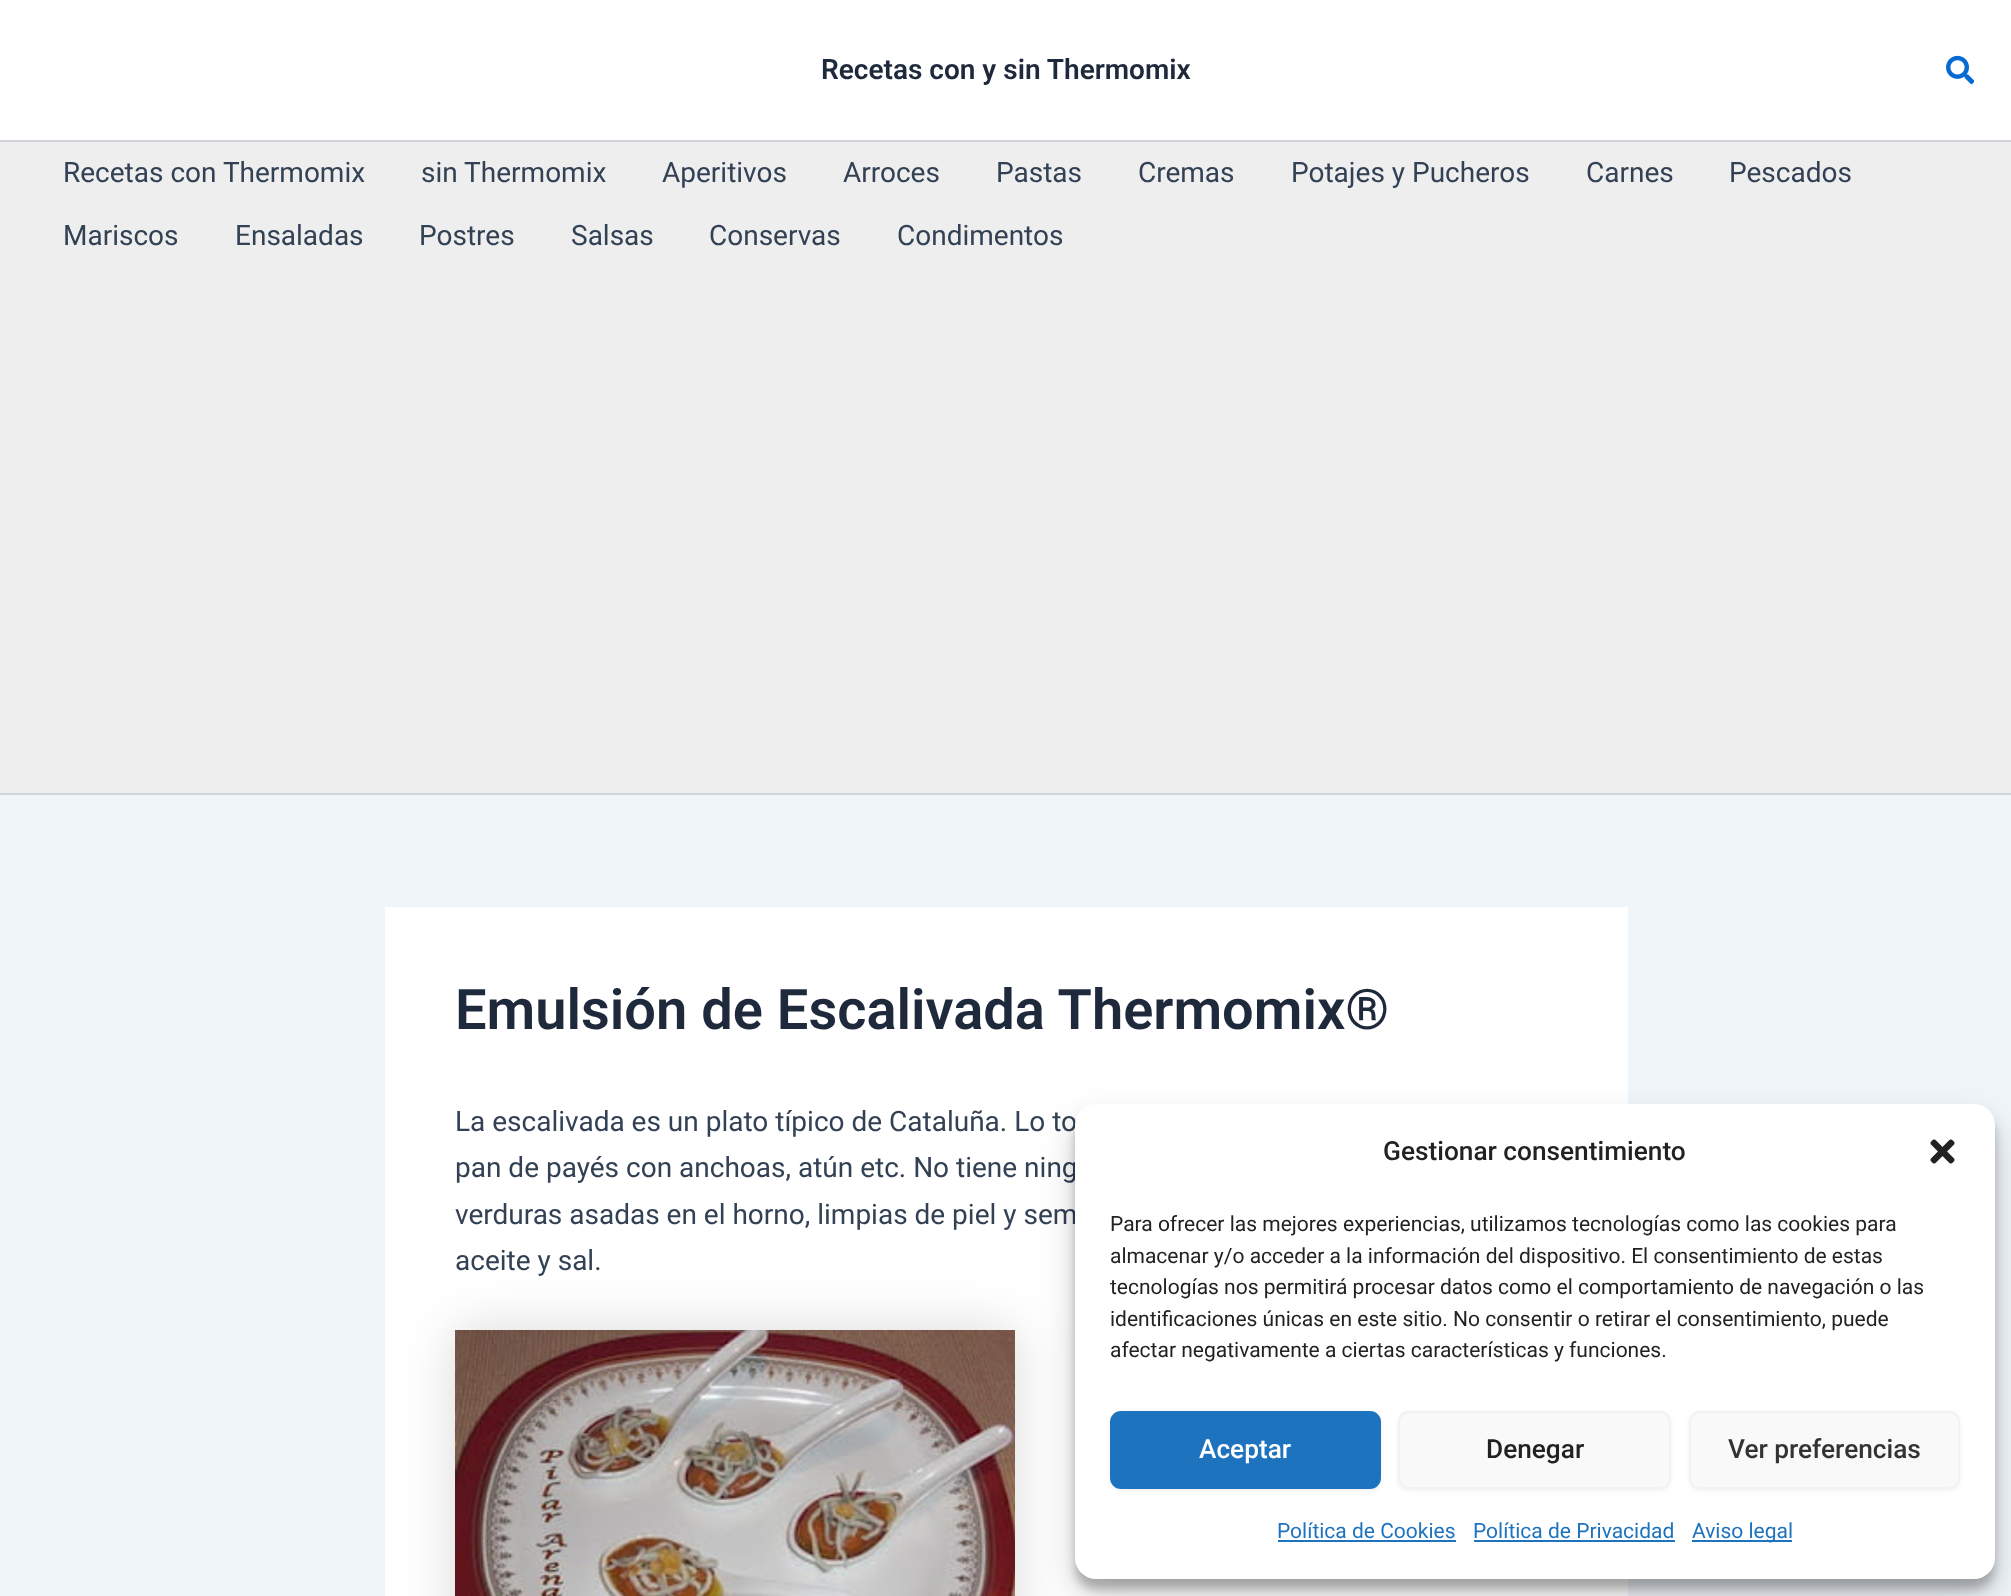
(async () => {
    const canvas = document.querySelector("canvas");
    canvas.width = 2011;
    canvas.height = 1596;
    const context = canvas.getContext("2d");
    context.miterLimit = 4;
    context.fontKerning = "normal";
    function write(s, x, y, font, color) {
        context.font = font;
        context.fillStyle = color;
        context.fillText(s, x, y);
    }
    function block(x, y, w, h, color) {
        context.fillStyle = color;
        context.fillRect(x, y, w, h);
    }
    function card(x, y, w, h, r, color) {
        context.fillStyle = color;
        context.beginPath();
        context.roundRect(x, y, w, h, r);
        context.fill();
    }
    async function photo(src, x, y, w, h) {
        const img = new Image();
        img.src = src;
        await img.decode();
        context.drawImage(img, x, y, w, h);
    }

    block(0, 0, 2011, 1596, "rgb(240, 245, 250)");
    block(0, 0, 2011, 140, "rgb(255, 255, 255)");
    block(0, 140, 2011, 2, "rgb(209, 213, 219)");
    write("Recetas con y sin Thermomix", 821, 79, "600 28px Roboto", "rgb(30, 41, 59)");
    await photo("media/1.png", 1946, 55, 28, 30);
    block(0, 142, 2011, 651, "rgb(238, 238, 238)");
    block(0, 793, 2011, 2, "rgb(209, 213, 219)");
    write("Recetas con Thermomix", 63, 182, "28px Roboto", "rgb(51, 65, 85)");
    write("sin Thermomix", 421, 182, "28px Roboto", "rgb(51, 65, 85)");
    write("Aperitivos", 662, 182, "28px Roboto", "rgb(51, 65, 85)");
    write("Arroces", 843, 182, "28px Roboto", "rgb(51, 65, 85)");
    write("Pastas", 996, 182, "28px Roboto", "rgb(51, 65, 85)");
    write("Cremas", 1138, 182, "28px Roboto", "rgb(51, 65, 85)");
    write("Potajes y Pucheros", 1291, 182, "28px Roboto", "rgb(51, 65, 85)");
    write("Carnes", 1586, 182, "28px Roboto", "rgb(51, 65, 85)");
    write("Pescados", 1729, 182, "28px Roboto", "rgb(51, 65, 85)");
    write("Mariscos", 63, 245, "28px Roboto", "rgb(51, 65, 85)");
    write("Ensaladas", 235, 245, "28px Roboto", "rgb(51, 65, 85)");
    write("Postres", 419, 245, "28px Roboto", "rgb(51, 65, 85)");
    write("Salsas", 571, 245, "28px Roboto", "rgb(51, 65, 85)");
    write("Conservas", 709, 245, "28px Roboto", "rgb(51, 65, 85)");
    write("Condimentos", 897, 245, "28px Roboto", "rgb(51, 65, 85)");
    block(385, 907, 1243, 689, "rgb(255, 255, 255)");
    write("Emulsión de Escalivada Thermomix®", 455, 1029, "600 56px Roboto", "rgb(30, 41, 59)");
    write("La escalivada es un plato típico de Cataluña. Lo to", 455, 1131, "28px Roboto", "rgb(51, 65, 85)");
    write("pan de payés con anchoas, atún etc. No tiene ning", 455, 1177, "28px Roboto", "rgb(51, 65, 85)");
    write("verduras asadas en el horno, limpias de piel y sem", 455, 1224, "28px Roboto", "rgb(51, 65, 85)");
    write("aceite y sal.", 455, 1270, "28px Roboto", "rgb(51, 65, 85)");
    context.fillStyle = "rgba(0, 0, 0, 0.15)";
    context.filter = "blur(26px)";
    context.beginPath();
    context.rect(455, 1330, 560, 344);
    context.fill();
    context.filter = "none";
    await photo("media/2.png", 455, 1330, 560, 266);
    context.fillStyle = "rgba(0, 0, 0, 0.23)";
    context.filter = "blur(5px)";
    context.beginPath();
    context.roundRect(1075, 1115, 920, 474, 21);
    context.fill();
    context.filter = "none";
    context.fillStyle = "rgba(0, 0, 0, 0.19)";
    context.filter = "blur(17.5px)";
    context.beginPath();
    context.roundRect(1075, 1122, 920, 474, 21);
    context.fill();
    context.filter = "none";
    card(1075, 1104, 920, 475, 21, "rgb(255, 255, 255)");
    write("Gestionar consentimiento", 1383, 1160, "500 26.25px Roboto", "rgb(34, 34, 34)");
    await photo("media/3.png", 1930, 1139, 25, 25);
    write("Para ofrecer las mejores experiencias, utilizamos tecnologías como las cookies para", 1110, 1231, "21px Roboto", "rgb(34, 34, 34)");
    write("almacenar y/o acceder a la información del dispositivo. El consentimiento de estas", 1110, 1263, "21px Roboto", "rgb(34, 34, 34)");
    write("tecnologías nos permitirá procesar datos como el comportamiento de navegación o las", 1110, 1294, "21px Roboto", "rgb(34, 34, 34)");
    write("identificaciones únicas en este sitio. No consentir o retirar el consentimiento, puede", 1110, 1326, "21px Roboto", "rgb(34, 34, 34)");
    write("afectar negativamente a ciertas características y funciones.", 1110, 1357, "21px Roboto", "rgb(34, 34, 34)");
    context.fillStyle = "rgba(0, 0, 0, 0.05)";
    context.filter = "blur(2px)";
    context.beginPath();
    context.roundRect(1110, 1412, 271, 79, 11);
    context.fill();
    context.filter = "none";
    context.fillStyle = "rgb(30, 115, 190)";
    context.beginPath();
    context.roundRect(1111, 1412, 269, 76, 10);
    context.fill();
    context.strokeStyle = "rgb(30, 115, 190)";
    context.lineWidth = 2;
    context.stroke();
    write("Aceptar", 1199, 1458, "500 26.25px Roboto", "rgb(255, 255, 255)");
    context.fillStyle = "rgba(0, 0, 0, 0.05)";
    context.filter = "blur(2px)";
    context.beginPath();
    context.roundRect(1398, 1412, 273, 79, 11);
    context.fill();
    context.filter = "none";
    context.fillStyle = "rgb(249, 249, 249)";
    context.beginPath();
    context.roundRect(1399, 1412, 271, 76, 10);
    context.fill();
    context.strokeStyle = "rgb(242, 242, 242)";
    context.stroke();
    write("Denegar", 1486, 1458, "500 26.25px Roboto", "rgb(34, 34, 34)");
    context.fillStyle = "rgba(0, 0, 0, 0.05)";
    context.filter = "blur(2px)";
    context.beginPath();
    context.roundRect(1689, 1412, 271, 79, 11);
    context.fill();
    context.filter = "none";
    context.fillStyle = "rgb(249, 249, 249)";
    context.beginPath();
    context.roundRect(1690, 1412, 269, 76, 10);
    context.fill();
    context.stroke();
    write("Ver preferencias", 1728, 1458, "500 26.25px Roboto", "rgb(51, 51, 51)");
    write("Política de Cookies", 1277, 1538, "21px Roboto", "rgb(30, 115, 190)");
    block(1278, 1540, 178, 2, "rgb(30, 115, 190)");
    write("Política de Privacidad", 1473, 1538, "21px Roboto", "rgb(30, 115, 190)");
    block(1474, 1540, 201, 2, "rgb(30, 115, 190)");
    block(1692, 1540, 100, 2, "rgb(30, 115, 190)");
    write("Aviso legal", 1692, 1538, "21px Roboto", "rgb(30, 115, 190)");
})();
